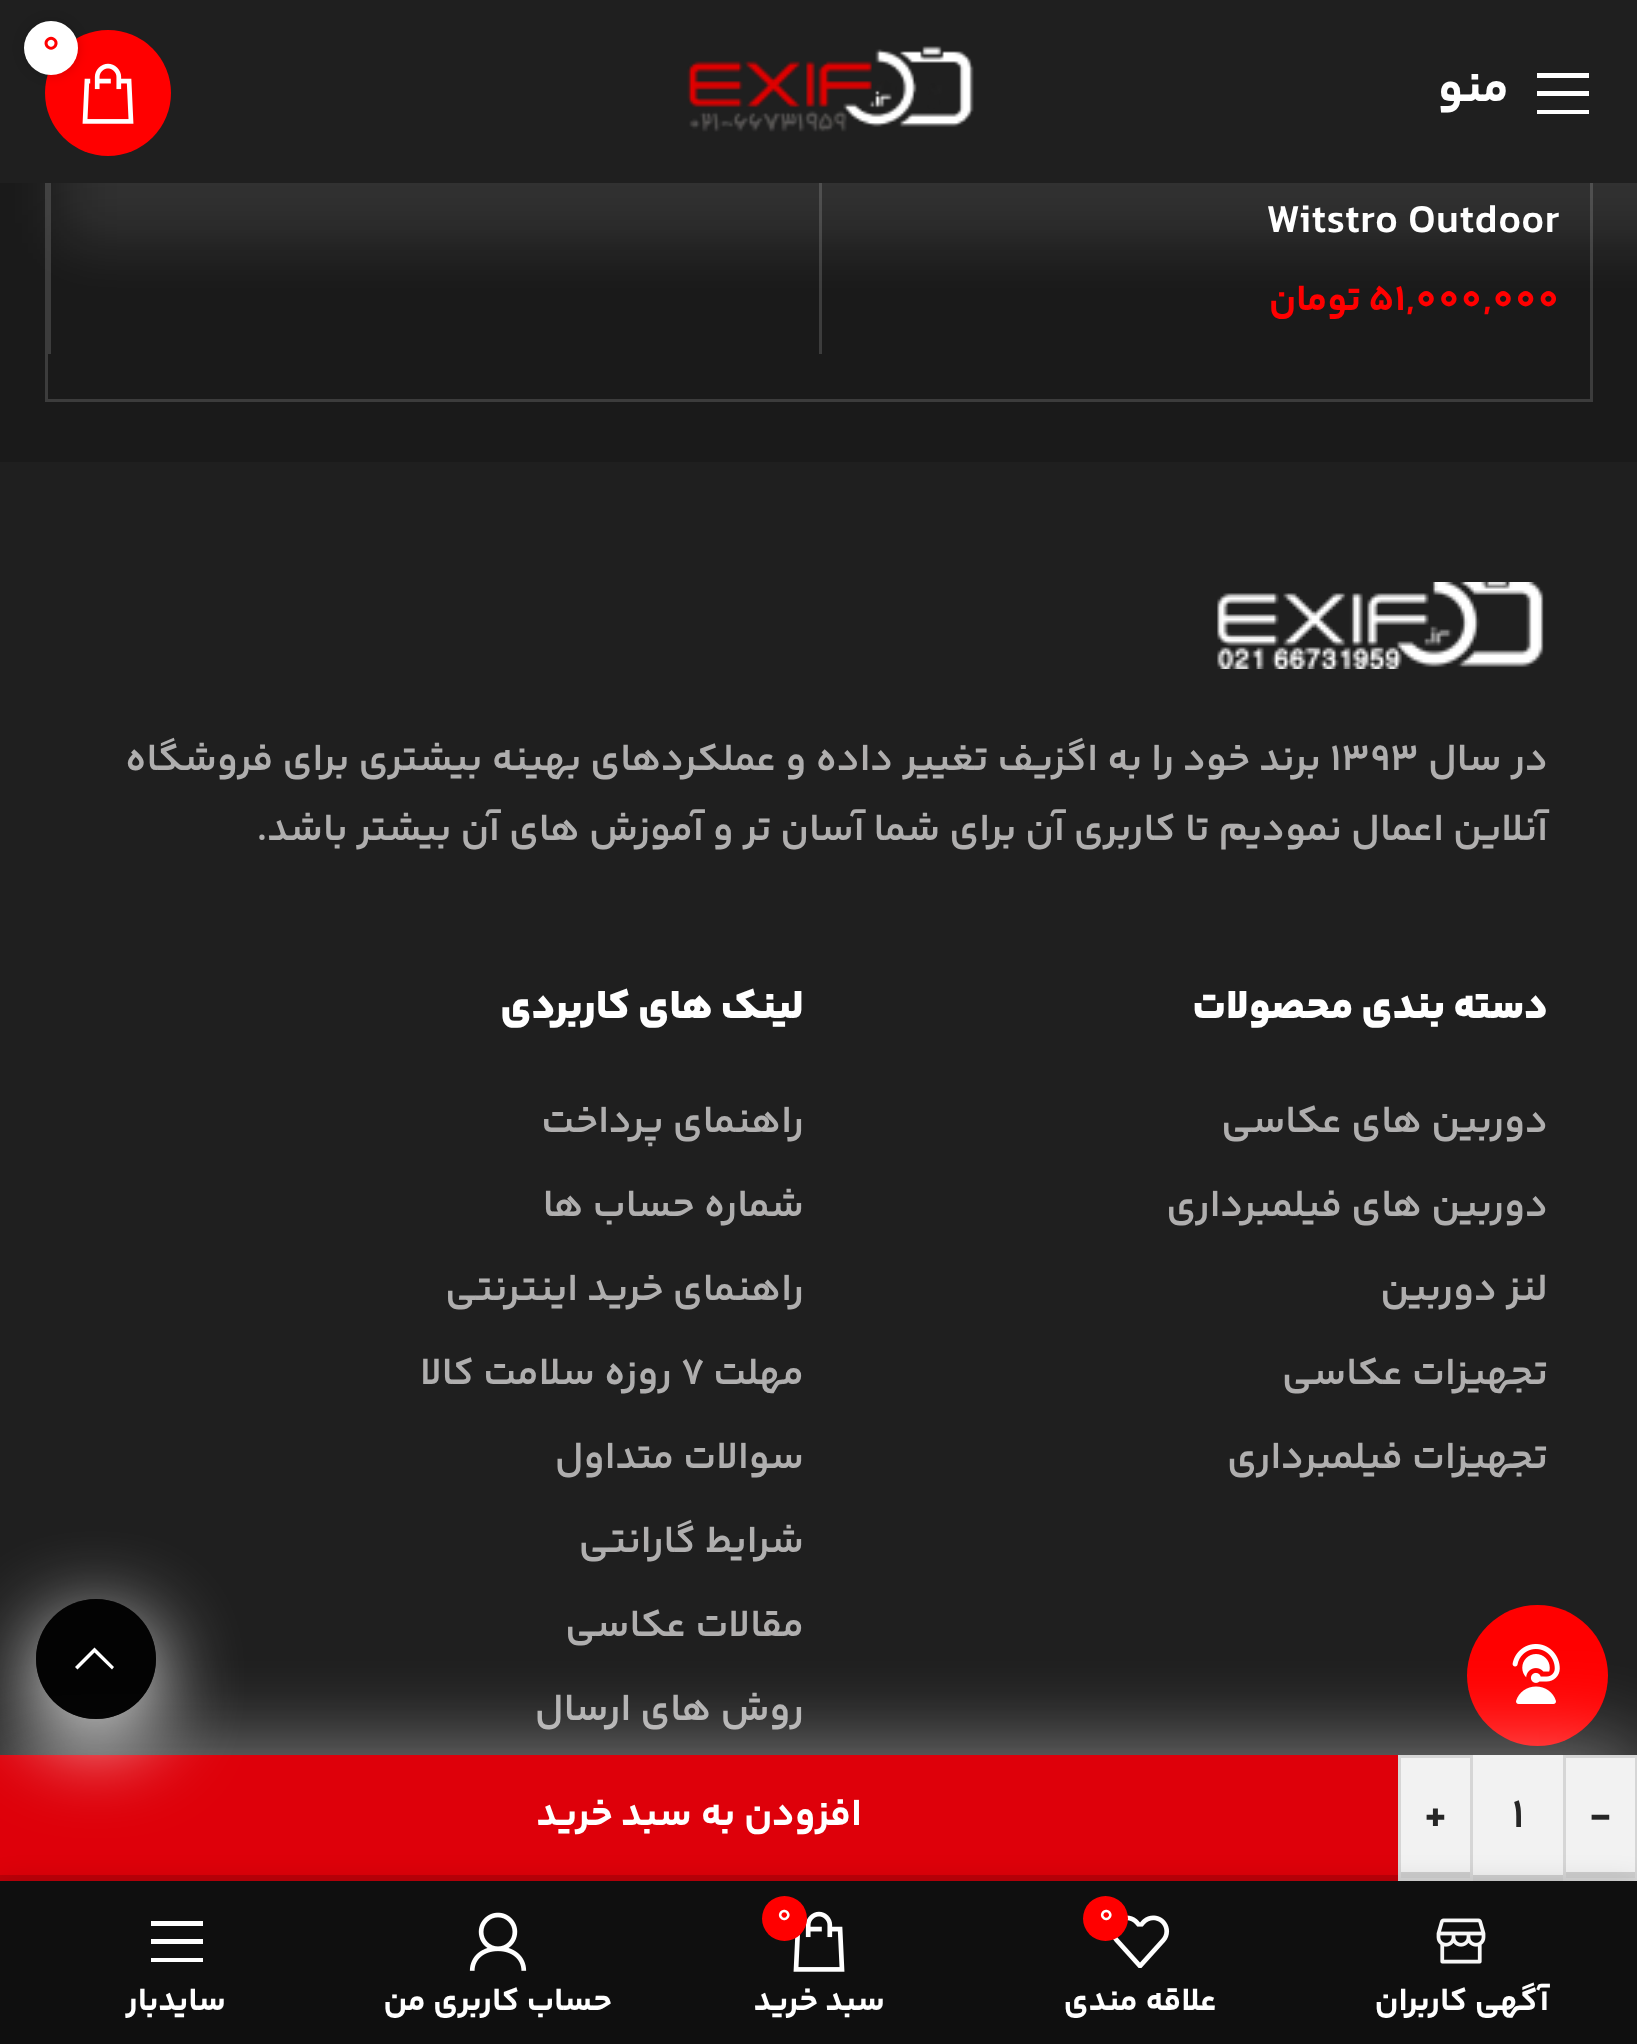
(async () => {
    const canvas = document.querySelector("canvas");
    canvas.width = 1637;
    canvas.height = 2044;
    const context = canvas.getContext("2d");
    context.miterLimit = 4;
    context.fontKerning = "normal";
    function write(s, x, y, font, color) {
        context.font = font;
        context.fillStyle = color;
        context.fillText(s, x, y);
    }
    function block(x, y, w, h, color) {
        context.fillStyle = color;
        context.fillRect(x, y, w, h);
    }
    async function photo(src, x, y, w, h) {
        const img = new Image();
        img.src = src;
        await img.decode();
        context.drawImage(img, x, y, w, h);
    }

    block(0, 0, 1637, 2044, "rgb(26, 26, 26)");
    context.strokeStyle = "rgb(60, 60, 60)";
    context.lineWidth = 3;
    context.strokeRect(46.5, -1.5, 1545, 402);
    block(819, 183, 3, 171, "rgb(60, 60, 60)");
    block(48, 183, 3, 171, "rgb(60, 60, 60)");
    context.fillStyle = "rgba(255, 255, 255, 0.1)";
    context.filter = "blur(30px)";
    context.beginPath();
    context.rect(60, 60, 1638, 183);
    context.fill();
    context.filter = "none";
    block(0, 0, 1637, 183, "rgb(31, 31, 31)");
    context.fillStyle = "rgb(255, 0, 0)";
    context.beginPath();
    context.arc(108, 93, 63, 0, Math.PI * 2);
    context.fill();
    await photo("media/1.png", 82, 63, 52, 61);
    context.fillStyle = "rgba(0, 0, 0, 0.17)";
    context.filter = "blur(6px)";
    context.beginPath();
    context.roundRect(24, 21, 54, 54, 27);
    context.fill();
    context.filter = "none";
    context.fillStyle = "rgb(255, 255, 255)";
    context.beginPath();
    context.arc(51, 48, 27, 0, Math.PI * 2);
    context.fill();
    write("0", 41, 53, "33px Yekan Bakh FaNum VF", "rgb(255, 0, 0)");
    context.fillStyle = "rgb(255, 255, 255)";
    context.beginPath();
    context.moveTo(1537, 78);
    context.lineTo(1589, 78);
    context.lineTo(1589, 73);
    context.lineTo(1537, 73);
    context.closePath();
    context.moveTo(1537, 96);
    context.lineTo(1589, 96);
    context.lineTo(1589, 91);
    context.lineTo(1537, 91);
    context.closePath();
    context.moveTo(1537, 114);
    context.lineTo(1589, 114);
    context.lineTo(1589, 110);
    context.lineTo(1537, 110);
    context.closePath();
    context.fill();
    context.direction = "rtl";
    write("منو", 1509, 101, "600 48px Yekan Bakh FaNum VF", "rgb(255, 255, 255)");
    await photo("media/2.png", 687, 46, 287, 86);
    context.direction = "ltr";
    write("Witstro Outdoor", 1266, 232, "500 42px Yekan Bakh FaNum VF", "rgb(255, 255, 255)");
    write("51,000,000", 1368, 310, "600 37.75px Yekan Bakh FaNum VF", "rgb(255, 0, 0)");
    context.direction = "rtl";
    write("تومان", 1361, 310, "600 37.75px Yekan Bakh FaNum VF", "rgb(255, 0, 0)");
    block(0, 462, 1637, 1293, "rgb(31, 31, 31)");
    await photo("media/3.png", 1217, 582, 327, 87);
    write("در سال", 1548, 770, "500 39px Yekan Bakh FaNum VF", "rgb(175, 174, 174)");
    context.direction = "ltr";
    write("1393", 1330, 770, "500 39px Yekan Bakh FaNum VF", "rgb(175, 174, 174)");
    context.direction = "rtl";
    write("برند خود را به اگزیف تغییر داده و عملکردهای بهینه بیشتری برای فروشگاه", 1321, 770, "500 39px Yekan Bakh FaNum VF", "rgb(175, 174, 174)");
    write("آنلاین اعمال نمودیم تا کاربری آن برای شما آسان تر و آموزش های آن بیشتر باشد.", 1548, 840, "500 39px Yekan Bakh FaNum VF", "rgb(175, 174, 174)");
    write("دسته بندی محصولات", 1548, 1018, "800 42px Yekan Bakh FaNum VF", "rgb(255, 255, 255)");
    write("دوربین های عکاسی", 1548, 1132, "500 39px Yekan Bakh FaNum VF", "rgb(175, 174, 174)");
    write("دوربین های فیلمبرداری", 1548, 1216, "500 39px Yekan Bakh FaNum VF", "rgb(175, 174, 174)");
    write("لنز دوربین", 1548, 1300, "500 39px Yekan Bakh FaNum VF", "rgb(175, 174, 174)");
    write("تجهیزات عکاسی", 1548, 1384, "500 39px Yekan Bakh FaNum VF", "rgb(175, 174, 174)");
    write("تجهیزات فیلمبرداری", 1548, 1468, "500 39px Yekan Bakh FaNum VF", "rgb(175, 174, 174)");
    write("لینک های کاربردی", 804, 1018, "800 42px Yekan Bakh FaNum VF", "rgb(255, 255, 255)");
    write("راهنمای پرداخت", 804, 1132, "500 39px Yekan Bakh FaNum VF", "rgb(175, 174, 174)");
    write("شماره حساب ها", 804, 1216, "500 39px Yekan Bakh FaNum VF", "rgb(175, 174, 174)");
    write("راهنمای خرید اینترنتی", 804, 1300, "500 39px Yekan Bakh FaNum VF", "rgb(175, 174, 174)");
    write("مهلت", 804, 1384, "500 39px Yekan Bakh FaNum VF", "rgb(175, 174, 174)");
    context.direction = "ltr";
    write("7", 681, 1384, "500 39px Yekan Bakh FaNum VF", "rgb(175, 174, 174)");
    context.direction = "rtl";
    write("روزه سلامت کالا", 672, 1384, "500 39px Yekan Bakh FaNum VF", "rgb(175, 174, 174)");
    write("سوالات متداول", 804, 1468, "500 39px Yekan Bakh FaNum VF", "rgb(175, 174, 174)");
    write("شرایط گارانتی", 804, 1552, "500 39px Yekan Bakh FaNum VF", "rgb(175, 174, 174)");
    write("مقالات عکاسی", 804, 1636, "500 39px Yekan Bakh FaNum VF", "rgb(175, 174, 174)");
    write("روش های ارسال", 804, 1720, "500 39px Yekan Bakh FaNum VF", "rgb(175, 174, 174)");
    context.fillStyle = "rgb(255, 0, 0)";
    context.beginPath();
    context.arc(1537.5, 1675.5, 70.5, 0, Math.PI * 2);
    context.fill();
    await photo("media/4.png", 1512, 1644, 48, 60);
    context.fillStyle = "rgba(255, 255, 255, 0.43)";
    context.filter = "blur(43.5px)";
    context.beginPath();
    context.rect(0, 1749, 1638, 126);
    context.fill();
    context.filter = "none";
    block(1401, 1755, 234, 120, "rgb(242, 242, 242)");
    block(1566, 1872, 69, 6, "rgb(206, 206, 206)");
    context.strokeStyle = "rgb(214, 214, 214)";
    context.strokeRect(1564.5, 1756.5, 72, 123);
    context.direction = "ltr";
    write("-", 1589, 1825, "600 39px Yekan Bakh FaNum VF", "rgb(38, 38, 38)");
    block(1473, 1875, 90, 6, "rgb(206, 206, 206)");
    write("1", 1512, 1827, "500 42px Yekan Bakh FaNum VF", "rgb(38, 38, 38)");
    block(1401, 1872, 69, 6, "rgb(206, 206, 206)");
    context.strokeRect(1399.5, 1756.5, 72, 123);
    write("+", 1424, 1825, "600 39px Yekan Bakh FaNum VF", "rgb(38, 38, 38)");
    block(0, 1755, 1398, 120, "rgb(222, 0, 10)");
    block(0, 1875, 1398, 6, "rgb(189, 0, 9)");
    context.direction = "rtl";
    write("افزودن به سبد خرید", 862, 1825, "600 39px Yekan Bakh FaNum VF", "rgb(255, 255, 255)");
    context.save();
    context.beginPath();
    context.moveTo(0, 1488);
    context.lineTo(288, 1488);
    context.lineTo(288, 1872);
    context.lineTo(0, 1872);
    context.closePath();
    context.moveTo(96, 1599);
    context.bezierCurveTo(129, 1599, 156, 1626, 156, 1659);
    context.bezierCurveTo(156, 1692, 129, 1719, 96, 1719);
    context.bezierCurveTo(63, 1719, 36, 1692, 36, 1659);
    context.bezierCurveTo(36, 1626, 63, 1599, 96, 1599);
    context.closePath();
    context.clip("evenodd");
    context.filter = "blur(43.5px)";
    context.beginPath();
    context.roundRect(36, 1620, 120, 120, 60);
    context.fill();
    context.filter = "none";
    context.restore();
    context.fillStyle = "rgba(0, 0, 0, 0.9)";
    context.beginPath();
    context.arc(96, 1659, 60, 0, Math.PI * 2);
    context.fill();
    context.fillStyle = "rgb(255, 255, 255)";
    context.beginPath();
    context.moveTo(112, 1669.5);
    context.lineTo(114, 1667);
    context.lineTo(94.5, 1647.5);
    context.lineTo(75, 1667);
    context.lineTo(77.5, 1669.5);
    context.lineTo(94.5, 1652.5);
    context.closePath();
    context.fill();
    context.fillStyle = "rgba(0, 0, 0, 0.12)";
    context.filter = "blur(13.5px)";
    context.beginPath();
    context.rect(0, 1881, 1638, 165);
    context.fill();
    context.filter = "none";
    block(0, 1881, 1637, 163, "rgb(15, 15, 15)");
    await photo("media/5.png", 1436, 1918, 50, 46);
    write("آگهی کاربران", 1549, 2010, "600 33px Yekan Bakh FaNum VF", "rgb(255, 255, 255)");
    await photo("media/6.png", 1113, 1915, 57, 53);
    context.fillStyle = "rgb(255, 0, 0)";
    context.beginPath();
    context.arc(1105.5, 1918.5, 22.5, 0, Math.PI * 2);
    context.fill();
    context.direction = "ltr";
    write("0", 1098, 1923, "27px Yekan Bakh FaNum VF", "rgb(255, 255, 255)");
    context.direction = "rtl";
    write("علاقه مندی", 1217, 2010, "600 33px Yekan Bakh FaNum VF", "rgb(255, 255, 255)");
    await photo("media/7.png", 793, 1911, 52, 61);
    context.fillStyle = "rgb(255, 0, 0)";
    context.beginPath();
    context.arc(784.5, 1918.5, 22.5, 0, Math.PI * 2);
    context.fill();
    context.direction = "ltr";
    write("0", 776, 1923, "27px Yekan Bakh FaNum VF", "rgb(255, 255, 255)");
    context.direction = "rtl";
    write("سبد خرید", 885, 2010, "600 33px Yekan Bakh FaNum VF", "rgb(255, 255, 255)");
    await photo("media/8.png", 469, 1912, 58, 59);
    write("حساب کاربری من", 612, 2010, "600 33px Yekan Bakh FaNum VF", "rgb(255, 255, 255)");
    context.beginPath();
    context.moveTo(151, 1926);
    context.lineTo(203, 1926);
    context.lineTo(203, 1921);
    context.lineTo(151, 1921);
    context.closePath();
    context.moveTo(151, 1944);
    context.lineTo(203, 1944);
    context.lineTo(203, 1939);
    context.lineTo(151, 1939);
    context.closePath();
    context.moveTo(151, 1962);
    context.lineTo(203, 1962);
    context.lineTo(203, 1958);
    context.lineTo(151, 1958);
    context.closePath();
    context.fill();
    write("سایدبار", 226, 2010, "600 33px Yekan Bakh FaNum VF", "rgb(255, 255, 255)");
})();
